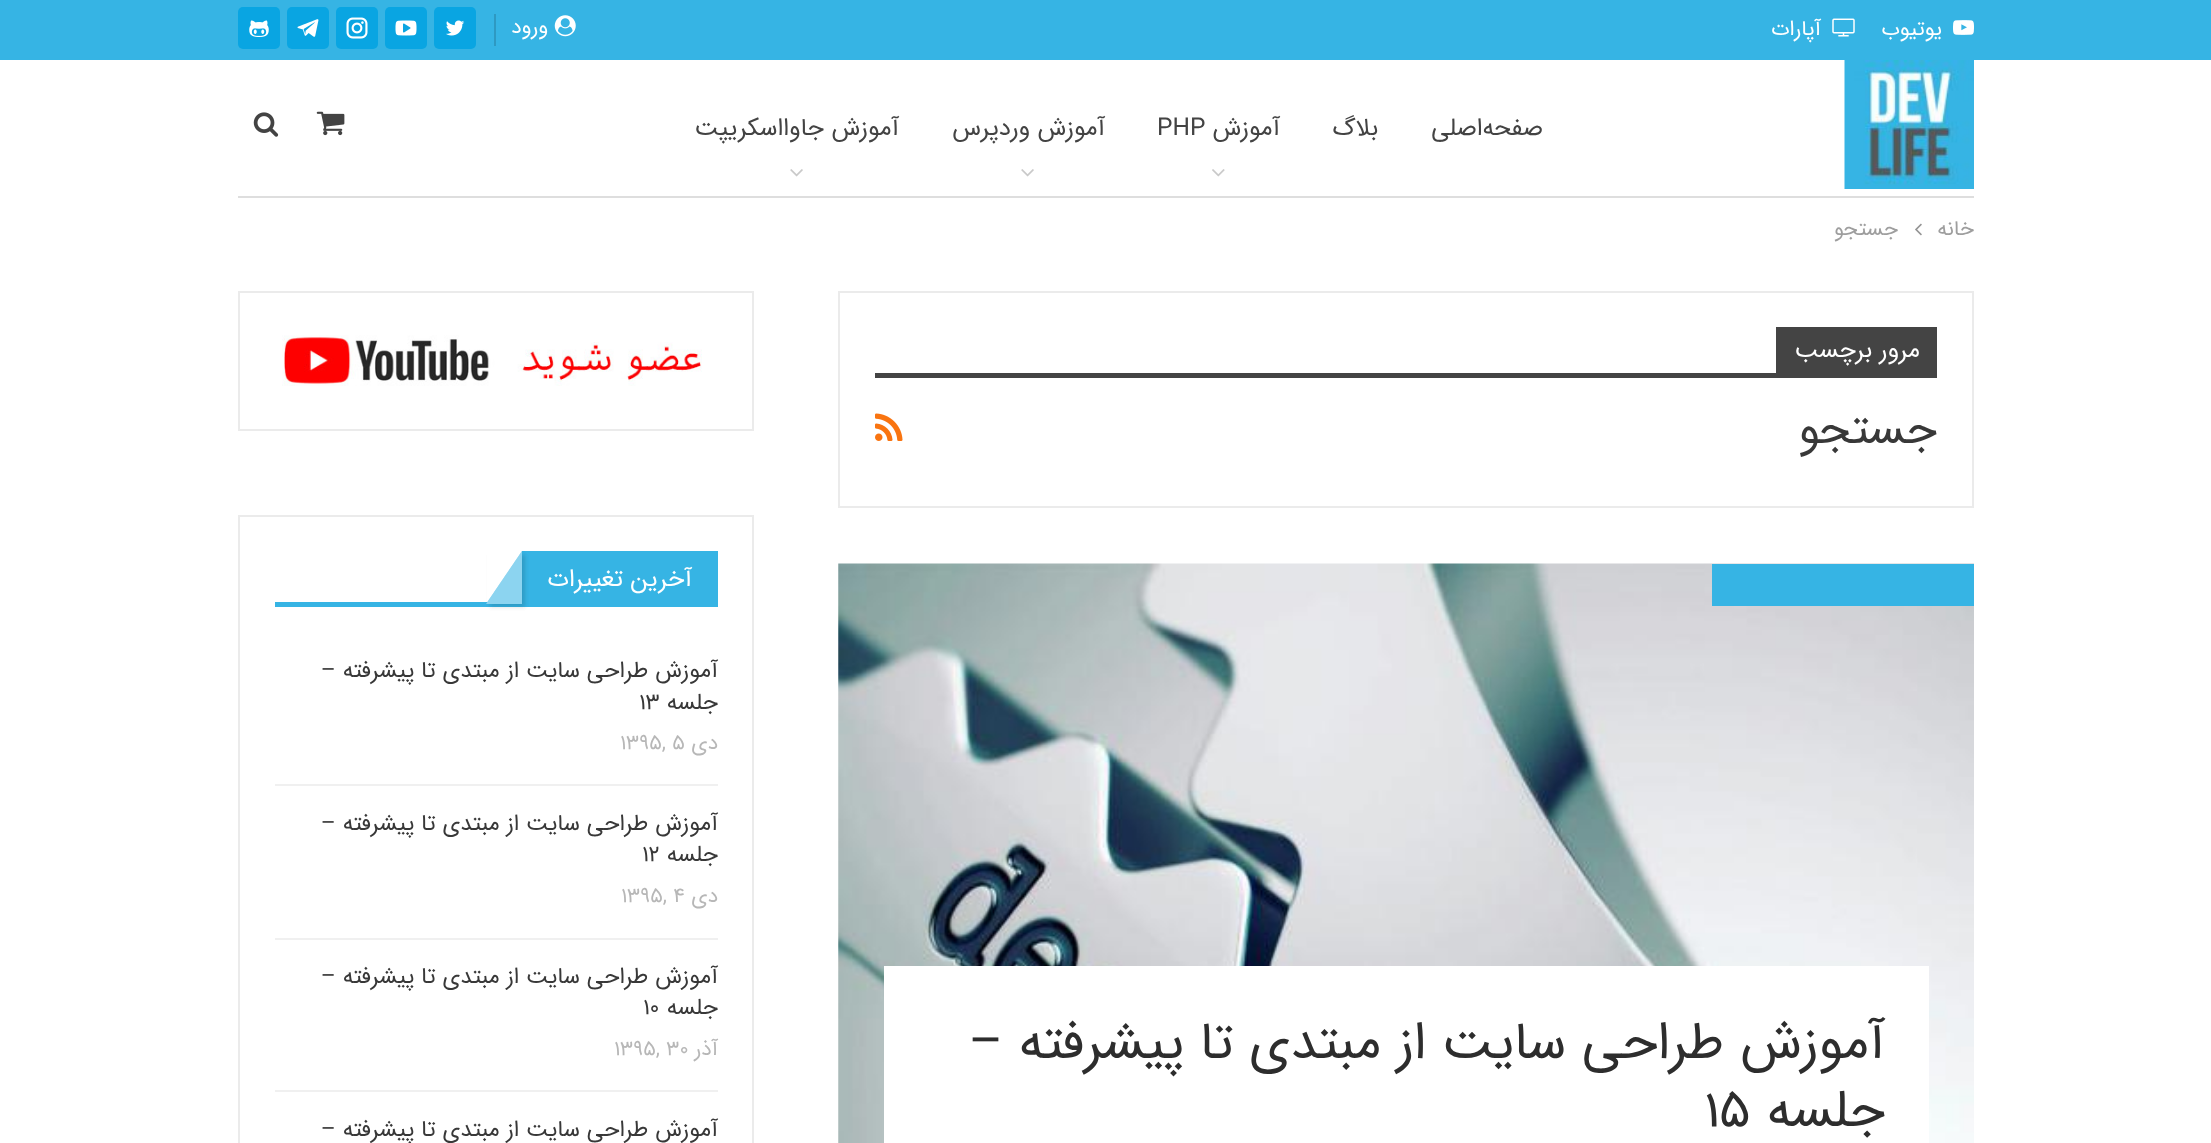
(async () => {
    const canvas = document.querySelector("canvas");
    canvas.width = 2211;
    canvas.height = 1143;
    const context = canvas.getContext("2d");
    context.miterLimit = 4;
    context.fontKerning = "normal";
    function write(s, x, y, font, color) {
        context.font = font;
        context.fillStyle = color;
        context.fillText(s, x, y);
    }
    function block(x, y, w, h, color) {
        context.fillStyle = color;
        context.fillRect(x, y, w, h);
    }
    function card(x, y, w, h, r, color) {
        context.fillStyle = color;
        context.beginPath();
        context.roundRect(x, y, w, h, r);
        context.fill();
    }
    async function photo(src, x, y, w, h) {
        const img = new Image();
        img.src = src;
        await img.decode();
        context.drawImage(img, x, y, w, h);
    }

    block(0, 0, 2211, 1143, "rgb(255, 255, 255)");
    block(0, 0, 2211, 60, "rgb(54, 180, 228)");
    await photo("media/1.png", 1953, 20, 21, 15);
    context.direction = "rtl";
    write("یوتیوب", 1942, 35, "21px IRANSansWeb", "rgb(255, 255, 255)");
    await photo("media/2.png", 1832, 18, 23, 19);
    write("آپارات", 1821, 35, "21px IRANSansWeb", "rgb(255, 255, 255)");
    await photo("media/3.png", 554, 15, 22, 22);
    write("ورود", 548, 33, "21px IRANSansWeb", "rgb(255, 255, 255)");
    block(494, 14, 2, 32, "rgb(46, 153, 194)");
    card(434, 7, 42, 42, 5, "rgb(9, 165, 226)");
    await photo("media/4.png", 446, 20, 19, 16);
    card(385, 7, 42, 42, 5, "rgb(9, 165, 226)");
    await photo("media/5.png", 395, 20, 22, 16);
    card(336, 7, 42, 42, 5, "rgb(9, 165, 226)");
    await photo("media/6.png", 346, 17, 22, 22);
    card(287, 7, 42, 42, 5, "rgb(9, 165, 226)");
    await photo("media/7.png", 297, 19, 22, 18);
    card(238, 7, 42, 42, 5, "rgb(9, 165, 226)");
    await photo("media/8.png", 249, 20, 20, 17);
    block(238, 196, 1736, 2, "rgb(222, 222, 222)");
    await photo("media/9.png", 1844, 60, 130, 129);
    write("صفحه‌اصلی", 1543, 135, "24.5px IRANSansWeb", "rgb(67, 67, 67)");
    write("بلاگ", 1378, 135, "24.5px IRANSansWeb", "rgb(67, 67, 67)");
    write("آموزش", 1280, 135, "24.5px IRANSansWeb", "rgb(67, 67, 67)");
    context.direction = "ltr";
    write("PHP", 1157, 135, "24.5px IRANSansWeb", "rgb(67, 67, 67)");
    await photo("media/10.png", 1212, 169, 13, 8);
    context.direction = "rtl";
    write("آموزش وردپرس", 1105, 135, "24.5px IRANSansWeb", "rgb(67, 67, 67)");
    await photo("media/11.png", 1021, 169, 13, 8);
    write("آموزش جاوااسکریپت", 899, 135, "24.5px IRANSansWeb", "rgb(67, 67, 67)");
    await photo("media/11.png", 790, 169, 13, 8);
    await photo("media/12.png", 316, 111, 29, 25);
    await photo("media/13.png", 253, 112, 26, 25);
    write("خانه", 1974, 235, "21px IRANSansWeb", "rgb(158, 158, 158)");
    await photo("media/14.png", 1915, 223, 7, 13);
    write("جستجو", 1898, 235, "21px IRANSansWeb", "rgb(158, 158, 158)");
    context.strokeStyle = "rgb(235, 235, 235)";
    context.lineWidth = 2;
    context.strokeRect(839, 292, 1134, 215);
    block(1776, 327, 161, 46, "rgb(68, 68, 68)");
    write("مرور برچسب", 1920, 357, "24.5px IRANSansWeb", "rgb(255, 255, 255)");
    block(875, 373, 1062, 5, "rgb(68, 68, 68)");
    write("جستجو", 1937, 443, "45.5px IRANSansWeb", "rgb(56, 56, 56)");
    await photo("media/15.png", 875, 413, 28, 28);
    await photo("media/16.png", 838, 563, 1136, 580);
    block(1712, 564, 262, 42, "rgb(54, 180, 228)");
    block(884, 966, 1045, 177, "rgb(255, 255, 255)");
    write("آموزش طراحی سایت از مبتدی تا پیشرفته –", 1885, 1058, "52.5px IRANSansWeb", "rgb(45, 45, 45)");
    write("جلسه", 1885, 1126, "52.5px IRANSansWeb", "rgb(45, 45, 45)");
    context.direction = "ltr";
    write("۱۵", 1704, 1126, "52.5px IRANSansWeb", "rgb(45, 45, 45)");
    context.strokeRect(239, 292, 514, 138);
    await photo("media/17.png", 282, 335, 420, 51);
    context.strokeRect(239, 516, 514, 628);
    block(522, 551, 196, 56, "rgb(54, 180, 228)");
    block(275, 602, 247, 5, "rgb(54, 180, 228)");
    context.save();
    context.beginPath();
    context.moveTo(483, 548);
    context.lineTo(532, 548);
    context.lineTo(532, 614);
    context.lineTo(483, 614);
    context.closePath();
    context.moveTo(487, 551);
    context.lineTo(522, 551);
    context.lineTo(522, 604);
    context.lineTo(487, 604);
    context.closePath();
    context.clip("evenodd");
    context.fillStyle = "rgba(0, 0, 0, 0.07)";
    context.filter = "blur(2px)";
    context.beginPath();
    context.rect(490, 555, 35, 52);
    context.fill();
    context.filter = "none";
    context.restore();
    context.beginPath();
    context.moveTo(522, 604);
    context.lineTo(486, 604);
    context.lineTo(522, 551);
    context.closePath();
    context.fill();
    context.direction = "rtl";
    write("آخرین تغییرات", 692, 586, "24.5px IRANSansWeb", "rgb(255, 255, 255)");
    context.save();
    context.beginPath();
    context.moveTo(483, 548);
    context.lineTo(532, 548);
    context.lineTo(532, 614);
    context.lineTo(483, 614);
    context.closePath();
    context.moveTo(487, 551);
    context.lineTo(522, 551);
    context.lineTo(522, 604);
    context.lineTo(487, 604);
    context.closePath();
    context.clip("evenodd");
    context.fillStyle = "rgba(0, 0, 0, 0.07)";
    context.filter = "blur(2px)";
    context.beginPath();
    context.rect(490, 555, 35, 52);
    context.fill();
    context.filter = "none";
    context.restore();
    context.fillStyle = "rgba(255, 255, 255, 0.43)";
    context.beginPath();
    context.moveTo(522, 604);
    context.lineTo(486, 604);
    context.lineTo(522, 551);
    context.closePath();
    context.fill();
    block(275, 784, 443, 2, "rgb(240, 240, 240)");
    write("آموزش طراحی سایت از مبتدی تا پیشرفته –", 718, 677, "22.75px IRANSansWeb", "rgb(56, 56, 56)");
    write("جلسه", 718, 709, "22.75px IRANSansWeb", "rgb(56, 56, 56)");
    context.direction = "ltr";
    write("۱۳", 639, 709, "22.75px IRANSansWeb", "rgb(56, 56, 56)");
    context.direction = "rtl";
    write("دی", 718, 749, "21px IRANSansWeb", "rgb(183, 183, 183)");
    context.direction = "ltr";
    write("۱۳۹۵, ۵", 620, 749, "21px IRANSansWeb", "rgb(183, 183, 183)");
    block(275, 938, 443, 2, "rgb(240, 240, 240)");
    context.direction = "rtl";
    write("آموزش طراحی سایت از مبتدی تا پیشرفته –", 718, 830, "22.75px IRANSansWeb", "rgb(56, 56, 56)");
    write("جلسه", 718, 861, "22.75px IRANSansWeb", "rgb(56, 56, 56)");
    context.direction = "ltr";
    write("۱۲", 642, 861, "22.75px IRANSansWeb", "rgb(56, 56, 56)");
    context.direction = "rtl";
    write("دی", 718, 902, "21px IRANSansWeb", "rgb(183, 183, 183)");
    context.direction = "ltr";
    write("۱۳۹۵, ۴", 621, 902, "21px IRANSansWeb", "rgb(183, 183, 183)");
    block(275, 1090, 443, 2, "rgb(240, 240, 240)");
    context.direction = "rtl";
    write("آموزش طراحی سایت از مبتدی تا پیشرفته –", 718, 983, "22.75px IRANSansWeb", "rgb(56, 56, 56)");
    write("جلسه", 718, 1014, "22.75px IRANSansWeb", "rgb(56, 56, 56)");
    context.direction = "ltr";
    write("۱۰", 643, 1014, "22.75px IRANSansWeb", "rgb(56, 56, 56)");
    context.direction = "rtl";
    write("آذر", 718, 1055, "21px IRANSansWeb", "rgb(183, 183, 183)");
    context.direction = "ltr";
    write("۱۳۹۵, ۳۰", 614, 1055, "21px IRANSansWeb", "rgb(183, 183, 183)");
    context.direction = "rtl";
    write("آموزش طراحی سایت از مبتدی تا پیشرفته –", 718, 1136, "22.75px IRANSansWeb", "rgb(56, 56, 56)");
})();
